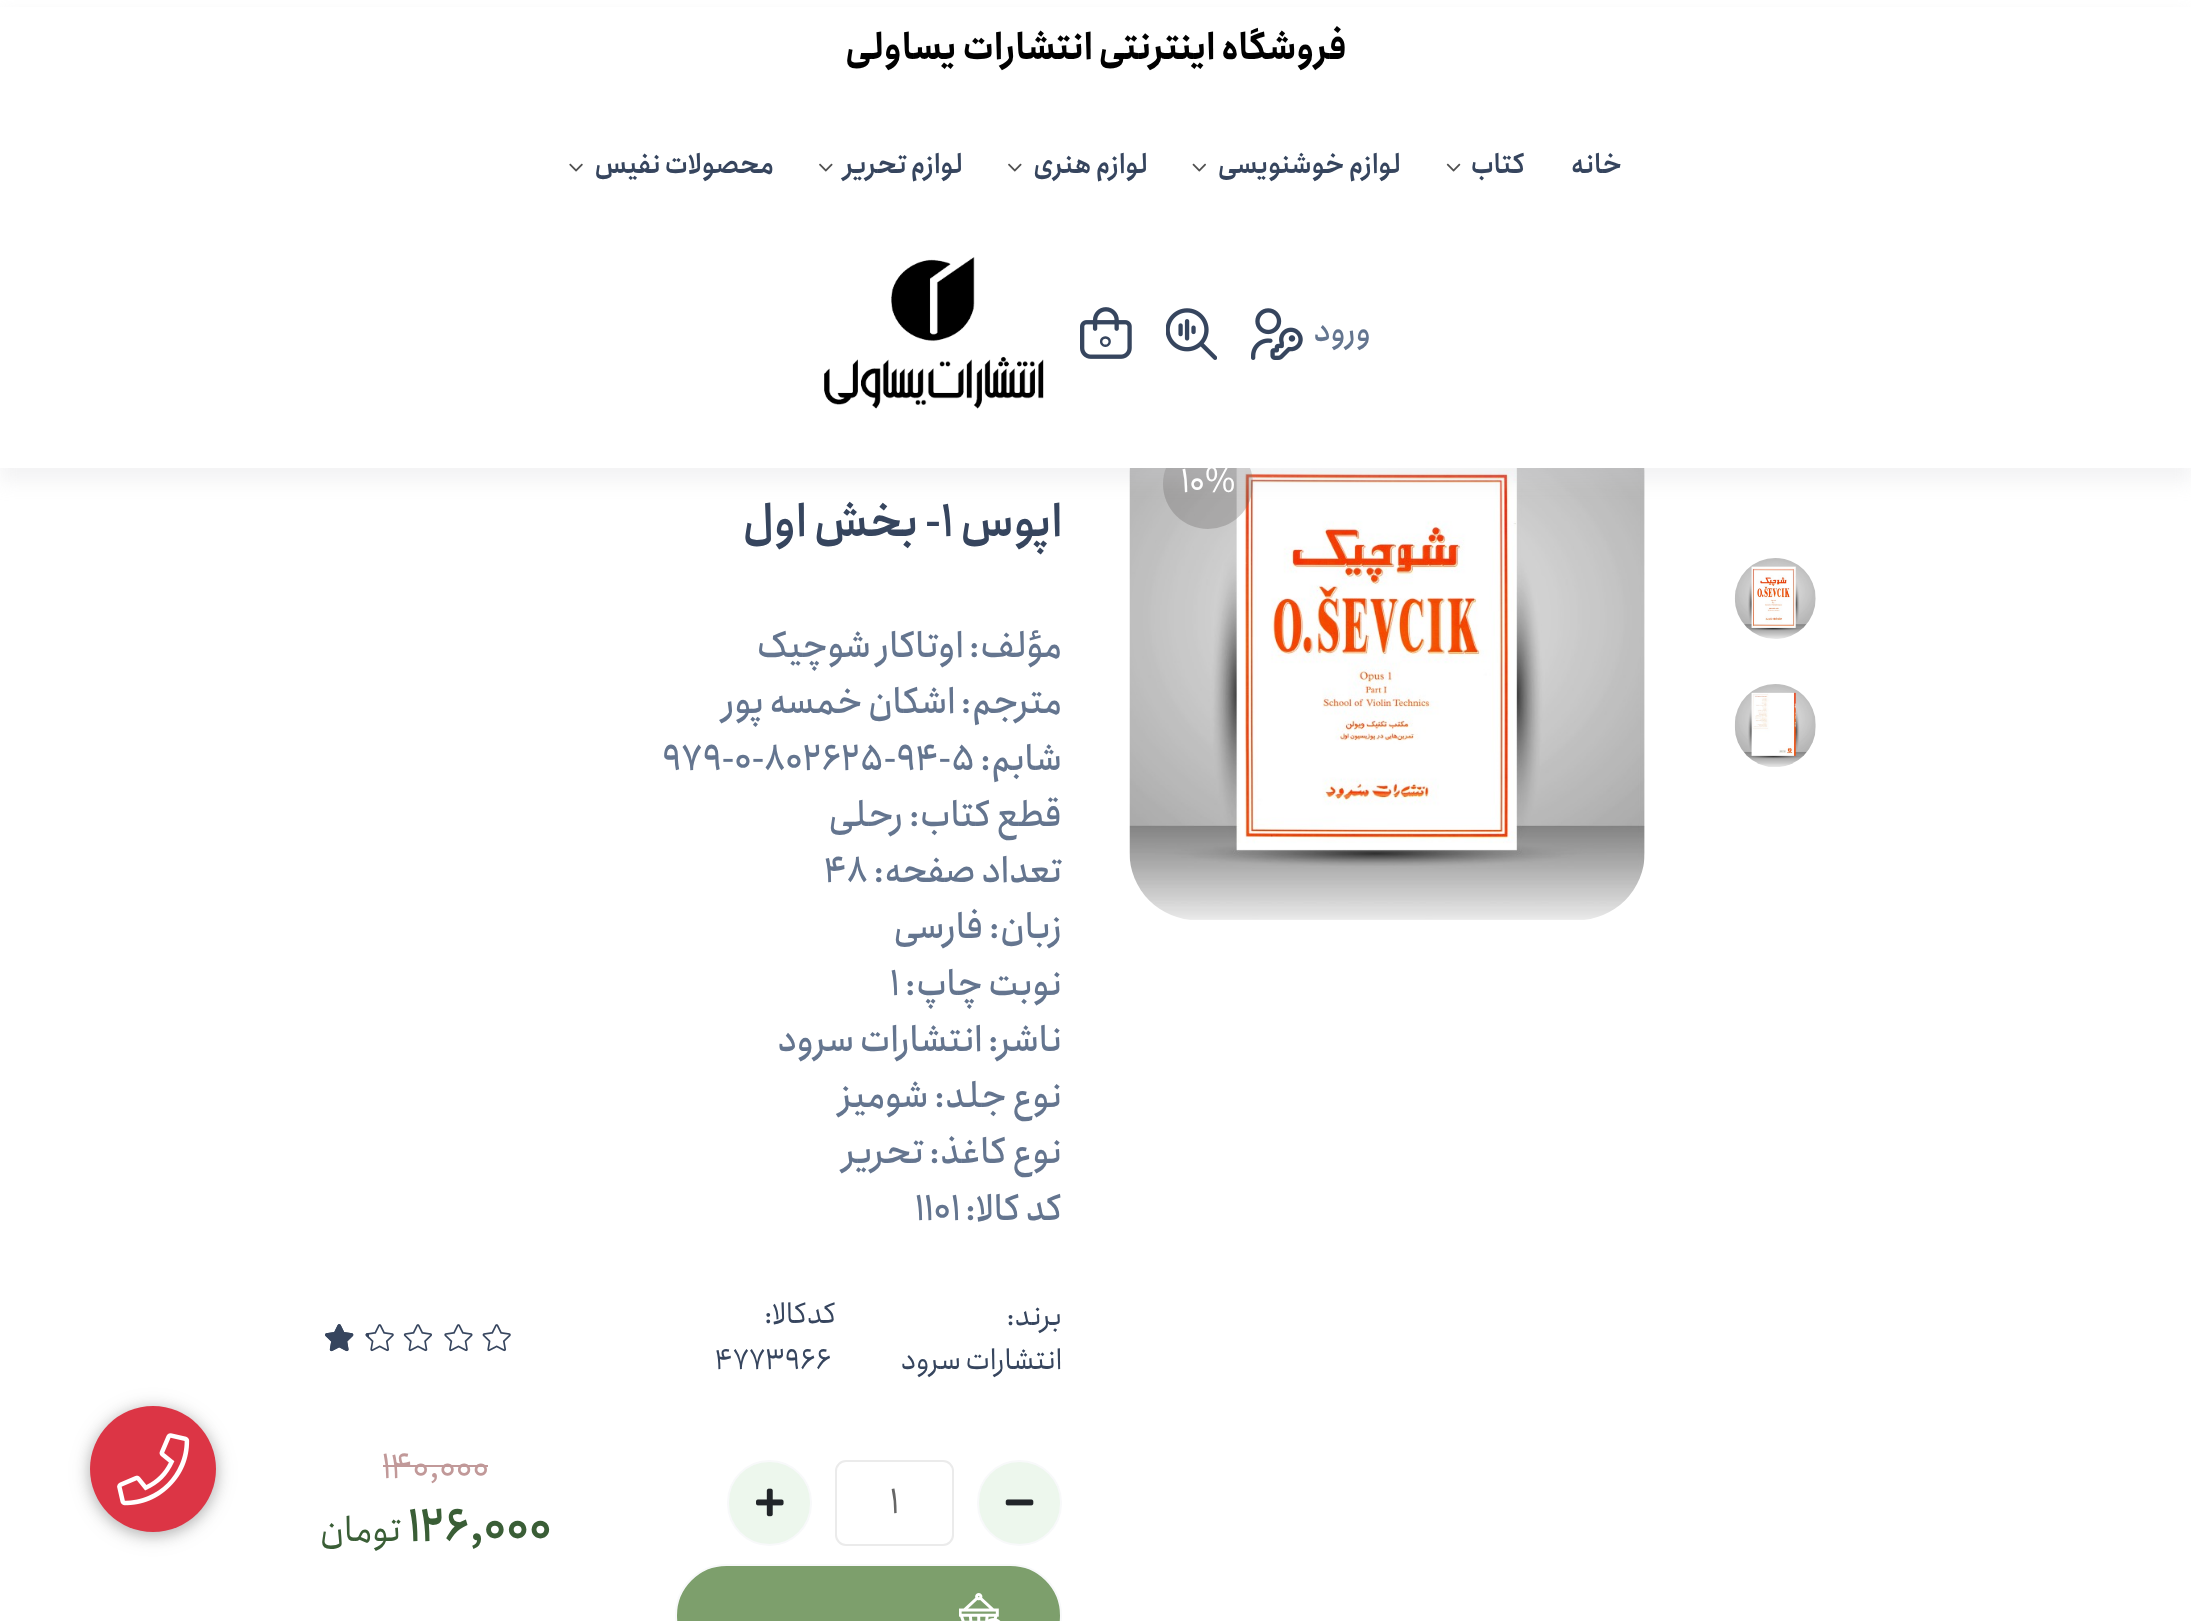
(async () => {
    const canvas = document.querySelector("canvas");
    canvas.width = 2191;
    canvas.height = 1621;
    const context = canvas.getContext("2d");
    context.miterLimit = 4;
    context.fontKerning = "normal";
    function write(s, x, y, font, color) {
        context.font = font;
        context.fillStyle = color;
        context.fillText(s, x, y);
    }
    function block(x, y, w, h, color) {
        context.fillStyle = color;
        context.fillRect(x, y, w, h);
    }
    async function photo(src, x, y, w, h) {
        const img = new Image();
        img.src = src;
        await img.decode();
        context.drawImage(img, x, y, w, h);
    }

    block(0, 0, 2191, 1621, "rgb(255, 255, 255)");
    await photo("media/9.png", 1129, 468, 516, 452);
    context.fillStyle = "rgba(98, 95, 95, 0.3)";
    context.beginPath();
    context.arc(1208, 484, 45, 0, Math.PI * 2);
    context.fill();
    context.fillStyle = "rgba(206, 209, 210, 0.25)";
    context.filter = "blur(9px)";
    context.beginPath();
    context.rect(0, 14, 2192, 468);
    context.fill();
    context.filter = "none";
    block(0, 7, 2191, 461, "rgb(255, 255, 255)");
    context.direction = "rtl";
    write("فروشگاه اینترنتی انتشارات یساولی", 1347, 59, "bold 36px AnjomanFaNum", "rgb(0, 0, 0)");
    write("خانه", 1622, 173, "600 27px AnjomanFaNum", "rgb(54, 69, 94)");
    write("کتاب", 1525, 173, "600 27px AnjomanFaNum", "rgb(54, 69, 94)");
    await photo("media/1.png", 1446, 163, 15, 9);
    write("لوازم خوشنویسی", 1401, 173, "600 27px AnjomanFaNum", "rgb(54, 69, 94)");
    await photo("media/2.png", 1192, 163, 14, 9);
    write("لوازم هنری", 1148, 173, "600 27px AnjomanFaNum", "rgb(54, 69, 94)");
    await photo("media/3.png", 1008, 163, 14, 9);
    write("لوازم تحریر", 963, 173, "600 27px AnjomanFaNum", "rgb(54, 69, 94)");
    await photo("media/3.png", 819, 163, 14, 9);
    write("محصولات نفیس", 774, 173, "600 27px AnjomanFaNum", "rgb(54, 69, 94)");
    await photo("media/4.png", 569, 163, 14, 9);
    write("ورود", 1371, 341, "500 32px AnjomanFaNum", "rgb(100, 117, 143)");
    await photo("media/5.png", 1251, 308, 52, 52);
    await photo("media/6.png", 1166, 308, 51, 52);
    await photo("media/7.png", 1080, 307, 52, 52);
    context.direction = "ltr";
    write("0", 1098, 349, "32px AnjomanFaNum", "rgb(54, 69, 94)");
    await photo("media/8.png", 824, 257, 220, 152);
    write("10%", 1181, 492, "34px AnjomanFaNum", "rgb(255, 255, 255)");
    await photo("media/10.png", 1734, 558, 82, 81);
    await photo("media/11.png", 1734, 684, 82, 83);
    context.direction = "rtl";
    write("اپوس", 1062, 536, "600 45px AnjomanFaNum", "rgb(54, 69, 94)");
    context.direction = "ltr";
    write("1", 941, 536, "600 45px AnjomanFaNum", "rgb(54, 69, 94)");
    context.direction = "rtl";
    write("- بخش اول", 941, 536, "600 45px AnjomanFaNum", "rgb(54, 69, 94)");
    write("مؤلف: اوتاکار شوچیک", 1062, 657, "500 36px AnjomanFaNum", "rgb(100, 117, 143)");
    write("مترجم: اشکان خمسه پور", 1062, 713, "500 36px AnjomanFaNum", "rgb(100, 117, 143)");
    write("شابم:", 1062, 770, "500 36px AnjomanFaNum", "rgb(100, 117, 143)");
    context.direction = "ltr";
    write("979-0-802625-94-5", 662, 770, "500 36px AnjomanFaNum", "rgb(100, 117, 143)");
    context.direction = "rtl";
    write("قطع کتاب: رحلی", 1062, 826, "500 36px AnjomanFaNum", "rgb(100, 117, 143)");
    write("تعداد صفحه:", 1062, 882, "500 36px AnjomanFaNum", "rgb(100, 117, 143)");
    context.direction = "ltr";
    write("48", 824, 882, "500 36px AnjomanFaNum", "rgb(100, 117, 143)");
    context.direction = "rtl";
    write("زبان: فارسی", 1062, 938, "500 36px AnjomanFaNum", "rgb(100, 117, 143)");
    write("نوبت چاپ:", 1062, 995, "500 36px AnjomanFaNum", "rgb(100, 117, 143)");
    context.direction = "ltr";
    write("1", 890, 995, "500 36px AnjomanFaNum", "rgb(100, 117, 143)");
    context.direction = "rtl";
    write("ناشر: انتشارات سرود", 1062, 1051, "500 36px AnjomanFaNum", "rgb(100, 117, 143)");
    write("نوع جلد: شومیز", 1062, 1107, "500 36px AnjomanFaNum", "rgb(100, 117, 143)");
    write("نوع کاغذ: تحریر", 1062, 1163, "500 36px AnjomanFaNum", "rgb(100, 117, 143)");
    write("کد کالا:", 1062, 1220, "500 36px AnjomanFaNum", "rgb(100, 117, 143)");
    context.direction = "ltr";
    write("1101", 915, 1220, "500 36px AnjomanFaNum", "rgb(100, 117, 143)");
    context.direction = "rtl";
    write("برند:", 1062, 1325, "29.25px AnjomanFaNum", "rgb(54, 69, 94)");
    write("انتشارات سرود", 1062, 1369, "29.25px AnjomanFaNum", "rgb(54, 69, 94)");
    write("کدکالا:", 836, 1323, "29.25px AnjomanFaNum", "rgb(54, 69, 94)");
    context.direction = "ltr";
    write("4773966", 715, 1369, "29.25px AnjomanFaNum", "rgb(54, 69, 94)");
    await photo("media/12.png", 482, 1324, 29, 28);
    await photo("media/13.png", 444, 1324, 29, 28);
    await photo("media/14.png", 403, 1324, 29, 28);
    await photo("media/12.png", 365, 1324, 29, 28);
    await photo("media/15.png", 325, 1324, 29, 28);
    await photo("media/16.png", 365, 1332, 4, 7);
    await photo("media/17.png", 325, 1324, 29, 28);
    context.fillStyle = "rgb(237, 247, 237)";
    context.beginPath();
    context.roundRect(978, 1461, 83, 84, 41.5);
    context.fill();
    context.strokeStyle = "rgb(248, 249, 250)";
    context.lineWidth = 2;
    context.stroke();
    await photo("media/18.png", 1005, 1499, 29, 7);
    context.beginPath();
    context.roundRect(836, 1461, 117, 84, 10);
    context.strokeStyle = "rgb(235, 235, 235)";
    context.stroke();
    write("1", 890, 1513, "36px AnjomanFaNum", "rgb(102, 102, 102)");
    context.fillStyle = "rgb(237, 247, 237)";
    context.beginPath();
    context.roundRect(728, 1461, 83, 84, 41.5);
    context.fill();
    context.strokeStyle = "rgb(248, 249, 250)";
    context.stroke();
    await photo("media/19.png", 756, 1488, 28, 29);
    write("140,000", 382, 1478, "36px AnjomanFaNum", "rgb(193, 153, 153)");
    block(383, 1465, 105, 2, "rgb(193, 153, 153)");
    write("126,000", 408, 1541, "600 45px AnjomanFaNum", "rgb(58, 94, 54)");
    context.direction = "rtl";
    write("تومان", 401, 1541, "36px AnjomanFaNum", "rgb(58, 94, 54)");
    context.fillStyle = "rgb(125, 159, 108)";
    context.beginPath();
    context.roundRect(676, 1565, 385, 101, 50.5);
    context.fill();
    context.stroke();
    await photo("media/20.png", 959, 1593, 42, 28);
    context.fillStyle = "rgba(0, 0, 0, 0.15)";
    context.filter = "blur(11px)";
    context.beginPath();
    context.roundRect(90, 1409, 126, 126, 63);
    context.fill();
    context.filter = "none";
    context.fillStyle = "rgba(0, 0, 0, 0.2)";
    context.filter = "blur(7px)";
    context.beginPath();
    context.roundRect(90, 1409, 126, 126, 63);
    context.fill();
    context.filter = "none";
    context.fillStyle = "rgb(220, 53, 69)";
    context.beginPath();
    context.arc(153, 1469, 63, 0, Math.PI * 2);
    context.fill();
    await photo("media/21.png", 117, 1433, 73, 73);
})();
